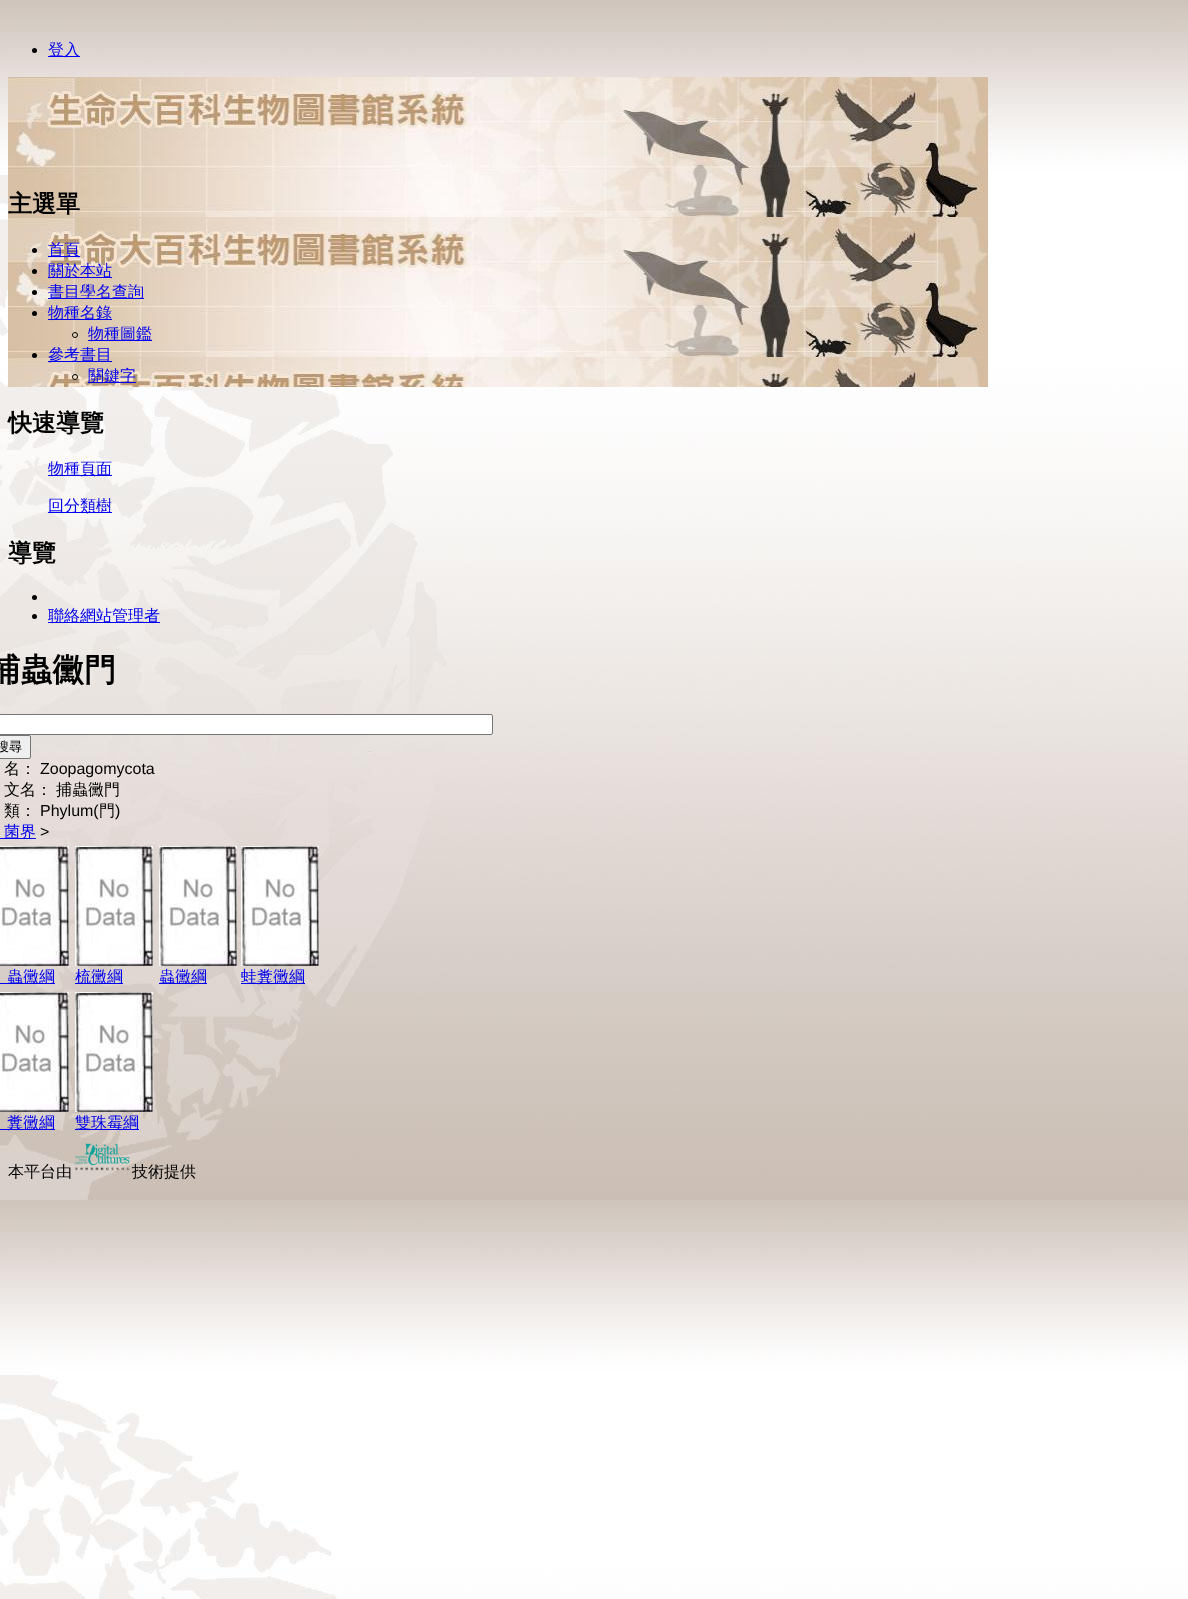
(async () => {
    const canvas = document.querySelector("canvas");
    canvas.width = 1188;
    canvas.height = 1599;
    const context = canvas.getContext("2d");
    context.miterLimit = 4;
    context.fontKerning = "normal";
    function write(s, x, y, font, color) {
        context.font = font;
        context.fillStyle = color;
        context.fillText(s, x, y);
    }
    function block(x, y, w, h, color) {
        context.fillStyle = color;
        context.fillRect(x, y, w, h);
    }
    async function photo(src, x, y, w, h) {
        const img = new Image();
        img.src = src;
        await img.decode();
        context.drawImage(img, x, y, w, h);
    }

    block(0, 0, 1188, 1599, "rgb(255, 255, 255)");
    await photo("media/1.png", 0, 0, 1188, 1599);
    context.fillStyle = "rgb(0, 0, 0)";
    context.beginPath();
    context.arc(34.5, 50.5, 2.5, 0, Math.PI * 2);
    context.fill();
    block(48, 56, 32, 1, "rgb(0, 0, 238)");
    write("登入", 48, 55, "500 16px WenQuanYi Zen Hei", "rgb(0, 0, 238)");
    await photo("media/2.png", 8, 77, 980, 310);
    write("主選單", 8, 212, "bold 24px WenQuanYi Zen Hei", "rgb(0, 0, 0)");
    context.beginPath();
    context.arc(34.5, 250.5, 2.5, 0, Math.PI * 2);
    context.fill();
    block(48, 256, 32, 1, "rgb(0, 0, 238)");
    write("首頁", 48, 255, "500 16px WenQuanYi Zen Hei", "rgb(0, 0, 238)");
    context.fillStyle = "rgb(0, 0, 0)";
    context.beginPath();
    context.arc(34.5, 271.5, 2.5, 0, Math.PI * 2);
    context.fill();
    block(48, 277, 64, 1, "rgb(0, 0, 238)");
    write("關於本站", 48, 276, "500 16px WenQuanYi Zen Hei", "rgb(0, 0, 238)");
    context.fillStyle = "rgb(0, 0, 0)";
    context.beginPath();
    context.arc(34.5, 292.5, 2.5, 0, Math.PI * 2);
    context.fill();
    block(48, 298, 96, 1, "rgb(0, 0, 238)");
    write("書目學名查詢", 48, 297, "500 16px WenQuanYi Zen Hei", "rgb(0, 0, 238)");
    context.fillStyle = "rgb(0, 0, 0)";
    context.beginPath();
    context.arc(34.5, 313.5, 2.5, 0, Math.PI * 2);
    context.fill();
    block(48, 319, 64, 1, "rgb(0, 0, 238)");
    write("物種名錄", 48, 318, "500 16px WenQuanYi Zen Hei", "rgb(0, 0, 238)");
    context.beginPath();
    context.arc(75, 335, 2.5, 0, Math.PI * 2);
    context.strokeStyle = "rgb(0, 0, 0)";
    context.stroke();
    block(88, 340, 64, 1, "rgb(0, 0, 238)");
    write("物種圖鑑", 88, 339, "500 16px WenQuanYi Zen Hei", "rgb(0, 0, 238)");
    context.fillStyle = "rgb(0, 0, 0)";
    context.beginPath();
    context.arc(34.5, 355.5, 2.5, 0, Math.PI * 2);
    context.fill();
    block(48, 361, 64, 1, "rgb(0, 0, 238)");
    write("參考書目", 48, 360, "500 16px WenQuanYi Zen Hei", "rgb(0, 0, 238)");
    context.beginPath();
    context.arc(75, 377, 2.5, 0, Math.PI * 2);
    context.stroke();
    block(88, 382, 48, 1, "rgb(0, 0, 238)");
    write("關鍵字", 88, 381, "500 16px WenQuanYi Zen Hei", "rgb(0, 0, 238)");
    write("快速導覽", 8, 431, "bold 24px WenQuanYi Zen Hei", "rgb(0, 0, 0)");
    block(48, 475, 64, 1, "rgb(0, 0, 238)");
    write("物種頁面", 48, 474, "500 16px WenQuanYi Zen Hei", "rgb(0, 0, 238)");
    block(48, 512, 64, 1, "rgb(0, 0, 238)");
    write("回分類樹", 48, 511, "500 16px WenQuanYi Zen Hei", "rgb(0, 0, 238)");
    write("導覽", 8, 561, "bold 24px WenQuanYi Zen Hei", "rgb(0, 0, 0)");
    context.beginPath();
    context.arc(34.5, 597.5, 2.5, 0, Math.PI * 2);
    context.fill();
    context.beginPath();
    context.arc(34.5, 616.5, 2.5, 0, Math.PI * 2);
    context.fill();
    block(48, 622, 112, 1, "rgb(0, 0, 238)");
    write("聯絡網站管理者", 48, 621, "500 16px WenQuanYi Zen Hei", "rgb(0, 0, 238)");
    write("捕蟲黴門", -12, 681, "bold 32px WenQuanYi Zen Hei", "rgb(0, 0, 0)");
    context.fillStyle = "rgb(255, 255, 255)";
    context.beginPath();
    context.roundRect(-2.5, 714.5, 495, 20, 1.5);
    context.fill();
    context.strokeStyle = "rgb(118, 118, 118)";
    context.stroke();
    context.fillStyle = "rgb(239, 239, 239)";
    context.beginPath();
    context.roundRect(-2.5, 735.5, 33, 23, 1.5);
    context.fill();
    context.stroke();
    write("搜尋", -4, 751, "500 13px WenQuanYi Zen Hei", "rgb(0, 0, 0)");
    write("名：", 4, 774, "500 16px WenQuanYi Zen Hei", "rgb(0, 0, 0)");
    write("Zoopagomycota", 40, 774, "16px Liberation Sans", "rgb(0, 0, 0)");
    write("文名：", 4, 795, "500 16px WenQuanYi Zen Hei", "rgb(0, 0, 0)");
    write("捕蟲黴門", 56, 795, "500 16px WenQuanYi Zen Hei", "rgb(0, 0, 0)");
    write("類：", 4, 816, "500 16px WenQuanYi Zen Hei", "rgb(0, 0, 0)");
    write("Phylum(", 40, 816, "16px Liberation Sans", "rgb(0, 0, 0)");
    write("門", 99, 816, "500 16px WenQuanYi Zen Hei", "rgb(0, 0, 0)");
    write(")", 115, 816, "16px Liberation Sans", "rgb(0, 0, 0)");
    block(0, 838, 36, 1, "rgb(0, 0, 238)");
    write("菌界", 4, 837, "500 16px WenQuanYi Zen Hei", "rgb(0, 0, 238)");
    write(">", 40, 837, "16px Liberation Sans", "rgb(0, 0, 0)");
    await photo("media/3.png", 0, 846, 69, 120);
    block(0, 983, 55, 1, "rgb(0, 0, 238)");
    write("蟲黴綱", 7, 982, "500 16px WenQuanYi Zen Hei", "rgb(0, 0, 238)");
    await photo("media/4.png", 75, 846, 78, 120);
    block(75, 983, 48, 1, "rgb(0, 0, 238)");
    write("梳黴綱", 75, 982, "500 16px WenQuanYi Zen Hei", "rgb(0, 0, 238)");
    await photo("media/4.png", 159, 846, 78, 120);
    block(159, 983, 48, 1, "rgb(0, 0, 238)");
    write("蟲黴綱", 159, 982, "500 16px WenQuanYi Zen Hei", "rgb(0, 0, 238)");
    await photo("media/4.png", 241, 846, 78, 120);
    block(241, 983, 64, 1, "rgb(0, 0, 238)");
    write("蛙糞黴綱", 241, 982, "500 16px WenQuanYi Zen Hei", "rgb(0, 0, 238)");
    await photo("media/3.png", 0, 992, 69, 120);
    block(0, 1129, 55, 1, "rgb(0, 0, 238)");
    write("糞黴綱", 7, 1128, "500 16px WenQuanYi Zen Hei", "rgb(0, 0, 238)");
    await photo("media/4.png", 75, 992, 78, 120);
    block(75, 1129, 64, 1, "rgb(0, 0, 238)");
    write("雙珠霉綱", 75, 1128, "500 16px WenQuanYi Zen Hei", "rgb(0, 0, 238)");
    write("本平台由", 8, 1177, "500 16px WenQuanYi Zen Hei", "rgb(0, 0, 0)");
    await photo("media/5.png", 74, 1143, 56, 28);
    write("技術提供", 132, 1177, "500 16px WenQuanYi Zen Hei", "rgb(0, 0, 0)");
})();
